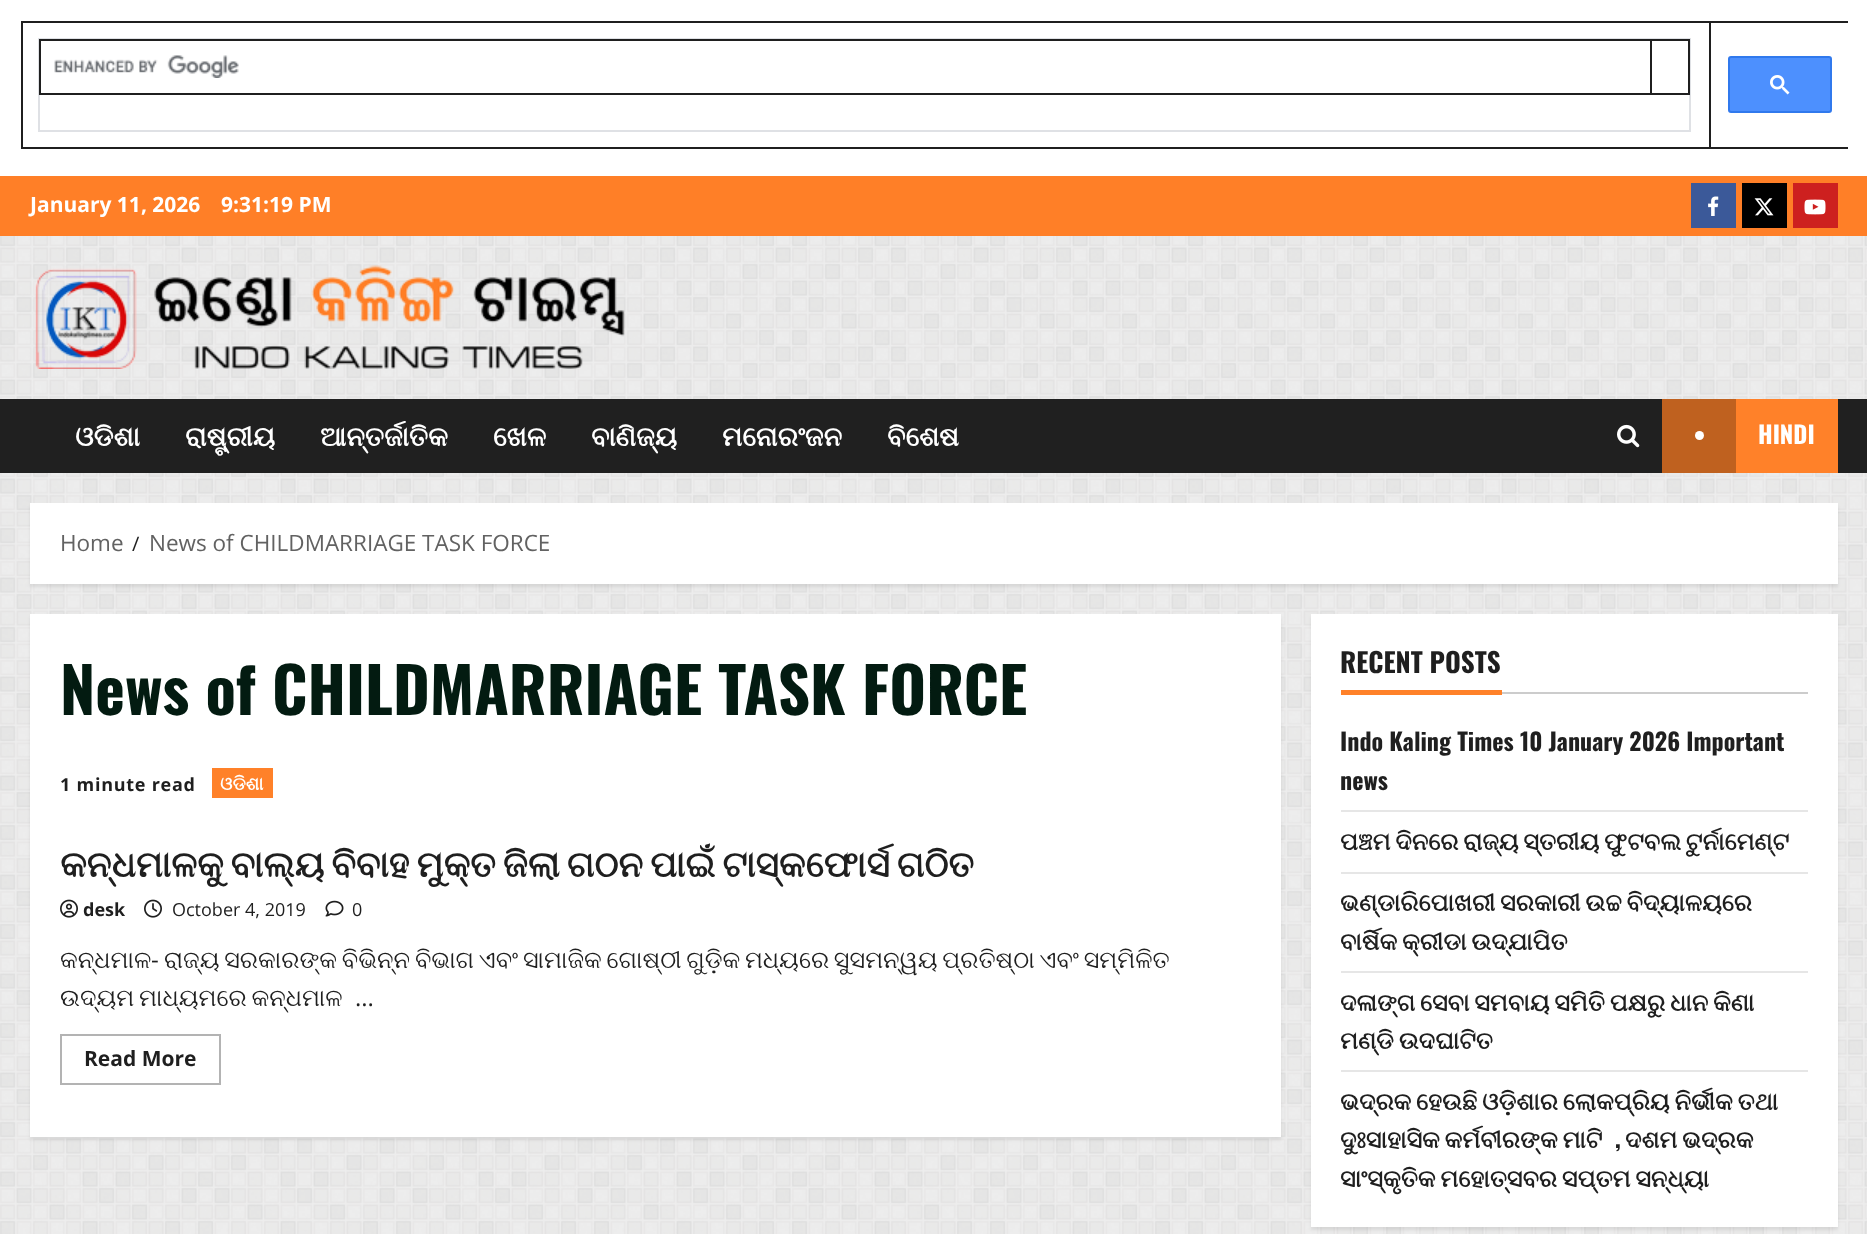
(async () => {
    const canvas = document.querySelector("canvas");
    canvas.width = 1867;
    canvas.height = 1234;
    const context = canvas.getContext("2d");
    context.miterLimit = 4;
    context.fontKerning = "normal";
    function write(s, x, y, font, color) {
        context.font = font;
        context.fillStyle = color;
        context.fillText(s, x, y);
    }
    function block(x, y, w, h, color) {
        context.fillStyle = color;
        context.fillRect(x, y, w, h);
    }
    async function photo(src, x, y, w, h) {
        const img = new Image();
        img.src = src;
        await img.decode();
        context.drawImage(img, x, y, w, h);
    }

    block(0, 0, 1867, 1234, "rgb(238, 238, 238)");
    await photo("media/1.png", 0, 236, 1867, 998);
    block(0, 0, 1867, 176, "rgb(255, 255, 255)");
    block(1709, 21, 139, 2, "rgb(31, 31, 31)");
    block(1709, 147, 139, 2, "rgb(31, 31, 31)");
    block(1709, 21, 2, 128, "rgb(31, 31, 31)");
    block(21, 21, 1689, 2, "rgb(31, 31, 31)");
    block(21, 147, 1689, 2, "rgb(31, 31, 31)");
    block(21, 21, 2, 128, "rgb(31, 31, 31)");
    context.strokeStyle = "rgb(223, 225, 229)";
    context.lineWidth = 2;
    context.strokeRect(39, 39, 1651, 92);
    block(1650, 39, 39, 2, "rgb(31, 31, 31)");
    block(1688, 39, 2, 56, "rgb(31, 31, 31)");
    block(1650, 93, 39, 2, "rgb(31, 31, 31)");
    block(1650, 39, 2, 56, "rgb(31, 31, 31)");
    block(39, 39, 1613, 2, "rgb(31, 31, 31)");
    block(39, 93, 1613, 2, "rgb(31, 31, 31)");
    block(39, 39, 2, 56, "rgb(31, 31, 31)");
    await photo("media/2.png", 54, 55, 185, 23);
    context.fillStyle = "rgb(77, 144, 254)";
    context.beginPath();
    context.roundRect(1729, 57, 102, 55, 2);
    context.fill();
    context.strokeStyle = "rgb(48, 121, 237)";
    context.stroke();
    await photo("media/3.png", 1770, 75, 20, 20);
    block(0, 176, 1867, 60, "rgb(255, 127, 39)");
    write("January 11, 2026", 30, 212, "bold 21px Open Sans", "rgb(255, 255, 255)");
    write("9:31:19 PM", 221, 212, "bold 21px Open Sans", "rgb(255, 255, 255)");
    block(1691, 183, 45, 45, "rgb(59, 89, 153)");
    await photo("media/4.png", 1708, 196, 11, 20);
    block(1742, 183, 45, 45, "rgb(0, 0, 0)");
    await photo("media/5.png", 1754, 198, 20, 18);
    block(1793, 183, 45, 45, "rgb(205, 32, 31)");
    await photo("media/6.png", 1804, 199, 22, 16);
    await photo("media/7.png", 35, 265, 590, 104);
    block(0, 399, 1867, 74, "rgb(32, 32, 32)");
    write("ଓଡିଶା", 75, 446, "bold 27px FreeSerif", "rgb(255, 255, 255)");
    write("ରାଷ୍ଟ୍ରୀୟ", 185, 446, "bold 27px FreeSerif", "rgb(255, 255, 255)");
    write("ଆନ୍ତର୍ଜାତିକ", 320, 446, "bold 27px FreeSerif", "rgb(255, 255, 255)");
    write("ଖେଳ", 493, 446, "bold 27px FreeSerif", "rgb(255, 255, 255)");
    write("ବାଣିଜ୍ୟ", 591, 446, "bold 27px FreeSerif", "rgb(255, 255, 255)");
    write("ମନୋରଂଜନ", 722, 446, "bold 27px FreeSerif", "rgb(255, 255, 255)");
    write("ବିଶେଷ", 887, 446, "bold 27px FreeSerif", "rgb(255, 255, 255)");
    await photo("media/8.png", 1617, 424, 23, 24);
    block(1736, 399, 102, 74, "rgb(255, 129, 41)");
    block(1662, 399, 74, 74, "rgb(191, 97, 31)");
    context.fillStyle = "rgb(255, 255, 255)";
    context.beginPath();
    context.arc(1699.5, 435.5, 4.5, 0, Math.PI * 2);
    context.fill();
    write("HINDI", 1758, 444, "bold 24px Oswald", "rgb(255, 255, 255)");
    context.fillStyle = "rgba(0, 0, 0, 0.08)";
    context.filter = "blur(1.5px)";
    context.beginPath();
    context.rect(30, 506, 1808, 81);
    context.fill();
    context.filter = "none";
    block(30, 503, 1808, 81, "rgb(255, 255, 255)");
    write("Home", 60, 551, "22.5px Open Sans", "rgb(98, 98, 98)");
    write("/", 132, 551, "20px Open Sans", "rgb(31, 31, 31)");
    write("News of CHILDMARRIAGE TASK FORCE", 149, 551, "22.5px Open Sans", "rgb(98, 98, 98)");
    context.fillStyle = "rgba(0, 0, 0, 0.08)";
    context.filter = "blur(1.5px)";
    context.beginPath();
    context.rect(30, 617, 1251, 523);
    context.fill();
    context.filter = "none";
    block(30, 614, 1251, 523, "rgb(255, 255, 255)");
    write("News of CHILDMARRIAGE TASK FORCE", 60, 715, "bold 63px Oswald", "rgb(3, 27, 17)");
    context.letterSpacing = "0.75px";
    write("1 minute read", 60, 791, "bold 18px Open Sans", "rgb(31, 31, 31)");
    block(212, 768, 61, 30, "rgb(255, 129, 41)");
    context.letterSpacing = "0px";
    write("ଓଡିଶା", 220, 790, "bold 18px FreeSerif", "rgb(255, 255, 255)");
    context.wordSpacing = "-2px";
    write("କନ୍ଧମାଳକୁ ବାଲ୍ୟ ବିବାହ ମୁକ୍ତ ଜିଲା ଗଠନ ପାଇଁ ଟାସ୍କଫୋର୍ସ ଗଠିତ", 60, 877, "bold 36px FreeSerif", "rgb(31, 31, 31)");
    await photo("media/9.png", 60, 899, 18, 19);
    context.wordSpacing = "0px";
    write("desk", 83, 916, "bold 18px Open Sans", "rgb(31, 31, 31)");
    await photo("media/10.png", 144, 899, 18, 19);
    write("October 4, 2019", 172, 916, "18px Open Sans", "rgb(31, 31, 31)");
    await photo("media/11.png", 325, 900, 19, 17);
    write("0", 352, 916, "18px Open Sans", "rgb(31, 31, 31)");
    write("କନ୍ଧମାଳ", 60, 968, "24px FreeSerif", "rgb(31, 31, 31)");
    write("-", 151, 968, "24px Open Sans", "rgb(31, 31, 31)");
    context.wordSpacing = "-1.25px";
    write("ରାଜ୍ୟ ସରକାରଙ୍କ ବିଭିନ୍ନ ବିଭାଗ ଏବଂ ସାମାଜିକ ଗୋଷ୍ଠୀ ଗୁଡ଼ିକ ମଧ୍ୟରେ ସୁସମନ୍ୱୟ ପ୍ରତିଷ୍ଠା ଏବଂ ସମ୍ମିଳିତ", 164, 968, "24px FreeSerif", "rgb(31, 31, 31)");
    write("ଉଦ୍ୟମ ମାଧ୍ୟମରେ କନ୍ଧମାଳ", 60, 1006, "24px FreeSerif", "rgb(31, 31, 31)");
    context.wordSpacing = "0px";
    write("...", 355, 1006, "24px Open Sans", "rgb(31, 31, 31)");
    context.strokeStyle = "rgb(179, 179, 179)";
    context.strokeRect(61, 1035, 159, 49);
    write("Read More", 84, 1066, "bold 21px Open Sans", "rgb(31, 31, 31)");
    context.fillStyle = "rgba(0, 0, 0, 0.08)";
    context.filter = "blur(1.5px)";
    context.beginPath();
    context.rect(1311, 617, 527, 613);
    context.fill();
    context.filter = "none";
    block(1311, 614, 527, 613, "rgb(255, 255, 255)");
    block(1502, 692, 306, 2, "rgb(204, 204, 204)");
    write("RECENT POSTS", 1340, 673, "bold 27px Oswald", "rgb(31, 31, 31)");
    block(1341, 690, 161, 5, "rgb(255, 129, 41)");
    block(1341, 810, 467, 2, "rgb(230, 230, 230)");
    write("Indo Kaling Times 10 January 2026 Important", 1340, 751, "bold 24px Oswald", "rgb(31, 31, 31)");
    write("news", 1340, 790, "bold 24px Oswald", "rgb(31, 31, 31)");
    block(1341, 872, 467, 2, "rgb(230, 230, 230)");
    context.wordSpacing = "-1.25px";
    write("ପଞ୍ଚମ ଦିନରେ ରାଜ୍ୟ ସ୍ତରୀୟ ଫୁଟବଲ ଟୁର୍ନାମେଣ୍ଟ", 1340, 850, "bold 24px FreeSerif", "rgb(31, 31, 31)");
    block(1341, 971, 467, 2, "rgb(230, 230, 230)");
    write("ଭଣ୍ଡାରିପୋଖରୀ ସରକାରୀ ଉଚ୍ଚ ବିଦ୍ୟାଳୟରେ", 1340, 911, "bold 24px FreeSerif", "rgb(31, 31, 31)");
    write("ବାର୍ଷିକ କ୍ରୀଡା ଉଦ୍‌ଯାପିତ", 1340, 950, "bold 24px FreeSerif", "rgb(31, 31, 31)");
    block(1341, 1070, 467, 2, "rgb(230, 230, 230)");
    write("ଦଳାଙ୍ଗ ସେବା ସମବାୟ ସମିତି ପକ୍ଷରୁ ଧାନ କିଣା", 1340, 1011, "bold 24px FreeSerif", "rgb(31, 31, 31)");
    write("ମଣ୍ଡି ଉଦଘାଟିତ", 1340, 1049, "bold 24px FreeSerif", "rgb(31, 31, 31)");
    write("ଭଦ୍ରକ ହେଉଛି ଓଡ଼ିଶାର ଲୋକପ୍ରିୟ ନିର୍ଭୀକ ତଥା", 1340, 1110, "bold 24px FreeSerif", "rgb(31, 31, 31)");
    write("ଦୁଃସାହାସିକ କର୍ମବୀରଙ୍କ ମାଟି", 1340, 1148, "bold 24px FreeSerif", "rgb(31, 31, 31)");
    context.wordSpacing = "0px";
    write(",", 1615, 1148, "bold 24px Oswald", "rgb(31, 31, 31)");
    context.wordSpacing = "-1.25px";
    write("ଦଶମ ଭଦ୍ରକ", 1625, 1148, "bold 24px FreeSerif", "rgb(31, 31, 31)");
    write("ସାଂସ୍କୃତିକ ମହୋତ୍ସବର ସପ୍ତମ ସନ୍ଧ୍ୟା", 1340, 1187, "bold 24px FreeSerif", "rgb(31, 31, 31)");
})();
